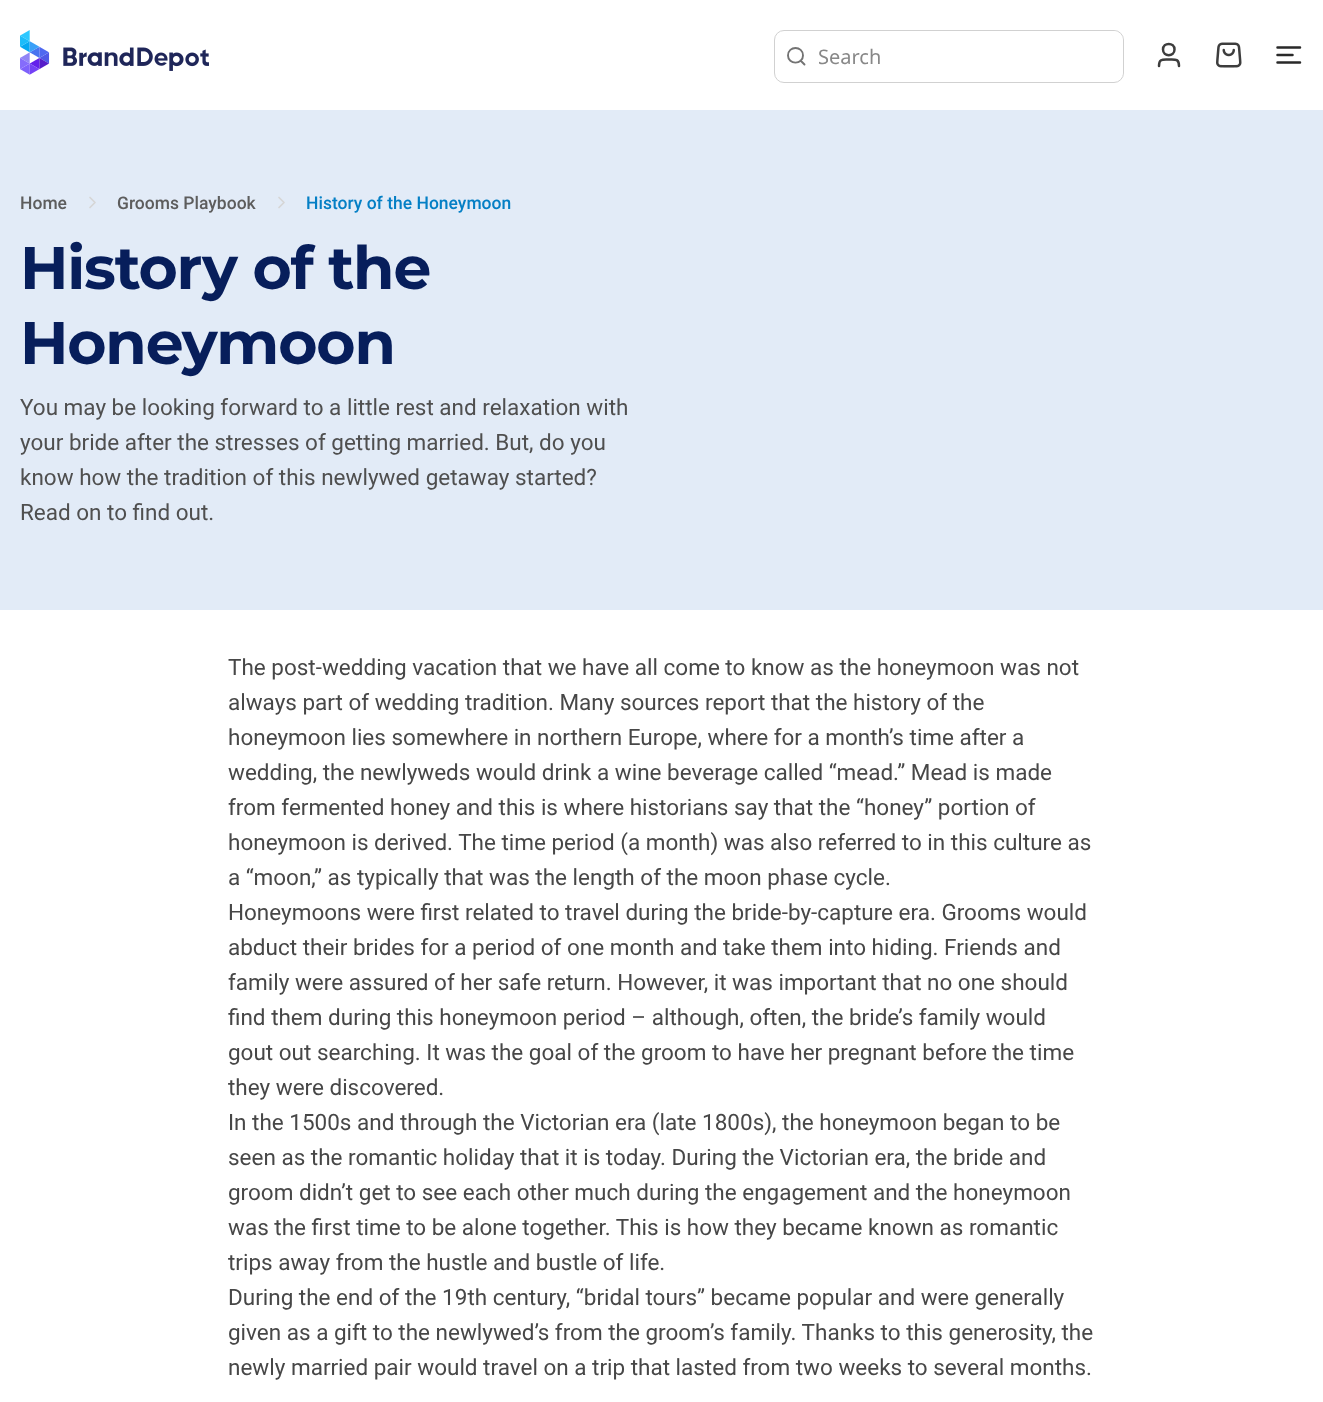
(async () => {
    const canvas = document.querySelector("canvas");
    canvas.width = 1323;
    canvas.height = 1402;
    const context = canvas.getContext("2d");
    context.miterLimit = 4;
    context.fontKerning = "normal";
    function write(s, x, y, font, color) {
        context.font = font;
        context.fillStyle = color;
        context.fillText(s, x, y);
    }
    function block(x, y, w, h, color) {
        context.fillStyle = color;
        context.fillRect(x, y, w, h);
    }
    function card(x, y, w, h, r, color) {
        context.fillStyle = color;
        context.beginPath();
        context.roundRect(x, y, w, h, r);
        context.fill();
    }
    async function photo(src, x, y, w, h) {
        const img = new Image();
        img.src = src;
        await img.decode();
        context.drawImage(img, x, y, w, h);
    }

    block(0, 0, 1323, 1402, "rgb(255, 255, 255)");
    await photo("media/1.png", 20, 30, 189, 45);
    context.beginPath();
    context.roundRect(774.5, 30.5, 349, 52, 9.5);
    context.strokeStyle = "rgb(209, 209, 209)";
    context.stroke();
    context.beginPath();
    context.moveTo(804.5, 64.5);
    context.lineTo(800.5, 60.5);
    context.moveTo(803, 55.5);
    context.bezierCurveTo(803, 65, 788, 65, 788, 55.5);
    context.bezierCurveTo(788, 45.5, 803, 45.5, 803, 55.5);
    context.closePath();
    context.strokeStyle = "rgb(115, 115, 115)";
    context.lineWidth = 1.9;
    context.lineCap = "round";
    context.lineJoin = "round";
    context.stroke();
    card(808, 31, 315, 50, 10, "rgb(255, 255, 255)");
    write("Search", 818, 64, "20px Noto Sans", "rgb(136, 136, 136)");
    context.beginPath();
    context.moveTo(1179, 66);
    context.bezierCurveTo(1179, 58.5, 1175, 59.5, 1169, 59.5);
    context.bezierCurveTo(1162.5, 59.5, 1159, 58.5, 1159, 66);
    context.moveTo(1174.5, 49.5);
    context.bezierCurveTo(1174.5, 57, 1163, 57, 1163, 49.5);
    context.bezierCurveTo(1163, 42, 1174.5, 42, 1174.5, 49.5);
    context.closePath();
    context.strokeStyle = "rgb(61, 61, 61)";
    context.lineWidth = 2.5;
    context.stroke();
    await photo("media/2.png", 1216, 42, 26, 26);
    context.beginPath();
    context.moveTo(1277.5, 55);
    context.lineTo(1292.5, 55);
    context.moveTo(1277.5, 47.5);
    context.lineTo(1300, 47.5);
    context.moveTo(1277.5, 62.5);
    context.lineTo(1300, 62.5);
    context.strokeStyle = "rgb(41, 41, 41)";
    context.stroke();
    block(0, 110, 1323, 500, "rgb(226, 235, 247)");
    write("Home", 20, 209, "500 17.5px Roboto", "rgb(93, 93, 93)");
    context.beginPath();
    context.moveTo(90, 207.5);
    context.lineTo(95, 202.5);
    context.lineTo(90, 197.5);
    context.strokeStyle = "rgb(214, 214, 214)";
    context.lineWidth = 1.7;
    context.stroke();
    write("Grooms Playbook", 117, 209, "500 17.5px Roboto", "rgb(93, 93, 93)");
    context.beginPath();
    context.moveTo(279, 207.5);
    context.lineTo(284, 202.5);
    context.lineTo(279, 197.5);
    context.stroke();
    write("History of the Honeymoon", 306, 209, "500 17.5px Roboto", "rgb(4, 127, 197)");
    context.letterSpacing = "-1.25px";
    write("History of the", 20, 289, "bold 60px Montserrat", "rgb(7, 30, 91)");
    write("Honeymoon", 20, 364, "bold 60px Montserrat", "rgb(7, 30, 91)");
    context.letterSpacing = "0px";
    write("You may be looking forward to a little rest and relaxation with", 20, 415, "22.5px Roboto", "rgb(79, 79, 79)");
    write("your bride after the stresses of getting married. But, do you", 20, 450, "22.5px Roboto", "rgb(79, 79, 79)");
    write("know how the tradition of this newlywed getaway started?", 20, 485, "22.5px Roboto", "rgb(79, 79, 79)");
    write("Read on to find out.", 20, 520, "22.5px Roboto", "rgb(79, 79, 79)");
    write("The post-wedding vacation that we have all come to know as the honeymoon was not", 228, 675, "22.5px Roboto", "rgb(71, 71, 71)");
    write("always part of wedding tradition. Many sources report that the history of the", 228, 710, "22.5px Roboto", "rgb(71, 71, 71)");
    write("honeymoon lies somewhere in northern Europe, where for a month’s time after a", 228, 745, "22.5px Roboto", "rgb(71, 71, 71)");
    write("wedding, the newlyweds would drink a wine beverage called “mead.” Mead is made", 228, 780, "22.5px Roboto", "rgb(71, 71, 71)");
    write("from fermented honey and this is where historians say that the “honey” portion of", 228, 815, "22.5px Roboto", "rgb(71, 71, 71)");
    write("honeymoon is derived. The time period (a month) was also referred to in this culture as", 228, 850, "22.5px Roboto", "rgb(71, 71, 71)");
    write("a “moon,” as typically that was the length of the moon phase cycle.", 228, 885, "22.5px Roboto", "rgb(71, 71, 71)");
    write("Honeymoons were first related to travel during the bride-by-capture era. Grooms would", 228, 920, "22.5px Roboto", "rgb(71, 71, 71)");
    write("abduct their brides for a period of one month and take them into hiding. Friends and", 228, 955, "22.5px Roboto", "rgb(71, 71, 71)");
    write("family were assured of her safe return. However, it was important that no one should", 228, 990, "22.5px Roboto", "rgb(71, 71, 71)");
    write("find them during this honeymoon period – although, often, the bride’s family would", 228, 1025, "22.5px Roboto", "rgb(71, 71, 71)");
    write("gout out searching. It was the goal of the groom to have her pregnant before the time", 228, 1060, "22.5px Roboto", "rgb(71, 71, 71)");
    write("they were discovered.", 228, 1095, "22.5px Roboto", "rgb(71, 71, 71)");
    write("In the 1500s and through the Victorian era (late 1800s), the honeymoon began to be", 228, 1130, "22.5px Roboto", "rgb(71, 71, 71)");
    write("seen as the romantic holiday that it is today. During the Victorian era, the bride and", 228, 1165, "22.5px Roboto", "rgb(71, 71, 71)");
    write("groom didn’t get to see each other much during the engagement and the honeymoon", 228, 1200, "22.5px Roboto", "rgb(71, 71, 71)");
    write("was the first time to be alone together. This is how they became known as romantic", 228, 1235, "22.5px Roboto", "rgb(71, 71, 71)");
    write("trips away from the hustle and bustle of life.", 228, 1270, "22.5px Roboto", "rgb(71, 71, 71)");
    write("During the end of the 19th century, “bridal tours” became popular and were generally", 228, 1305, "22.5px Roboto", "rgb(71, 71, 71)");
    write("given as a gift to the newlywed’s from the groom’s family. Thanks to this generosity, the", 228, 1340, "22.5px Roboto", "rgb(71, 71, 71)");
    write("newly married pair would travel on a trip that lasted from two weeks to several months.", 228, 1375, "22.5px Roboto", "rgb(71, 71, 71)");
})();
